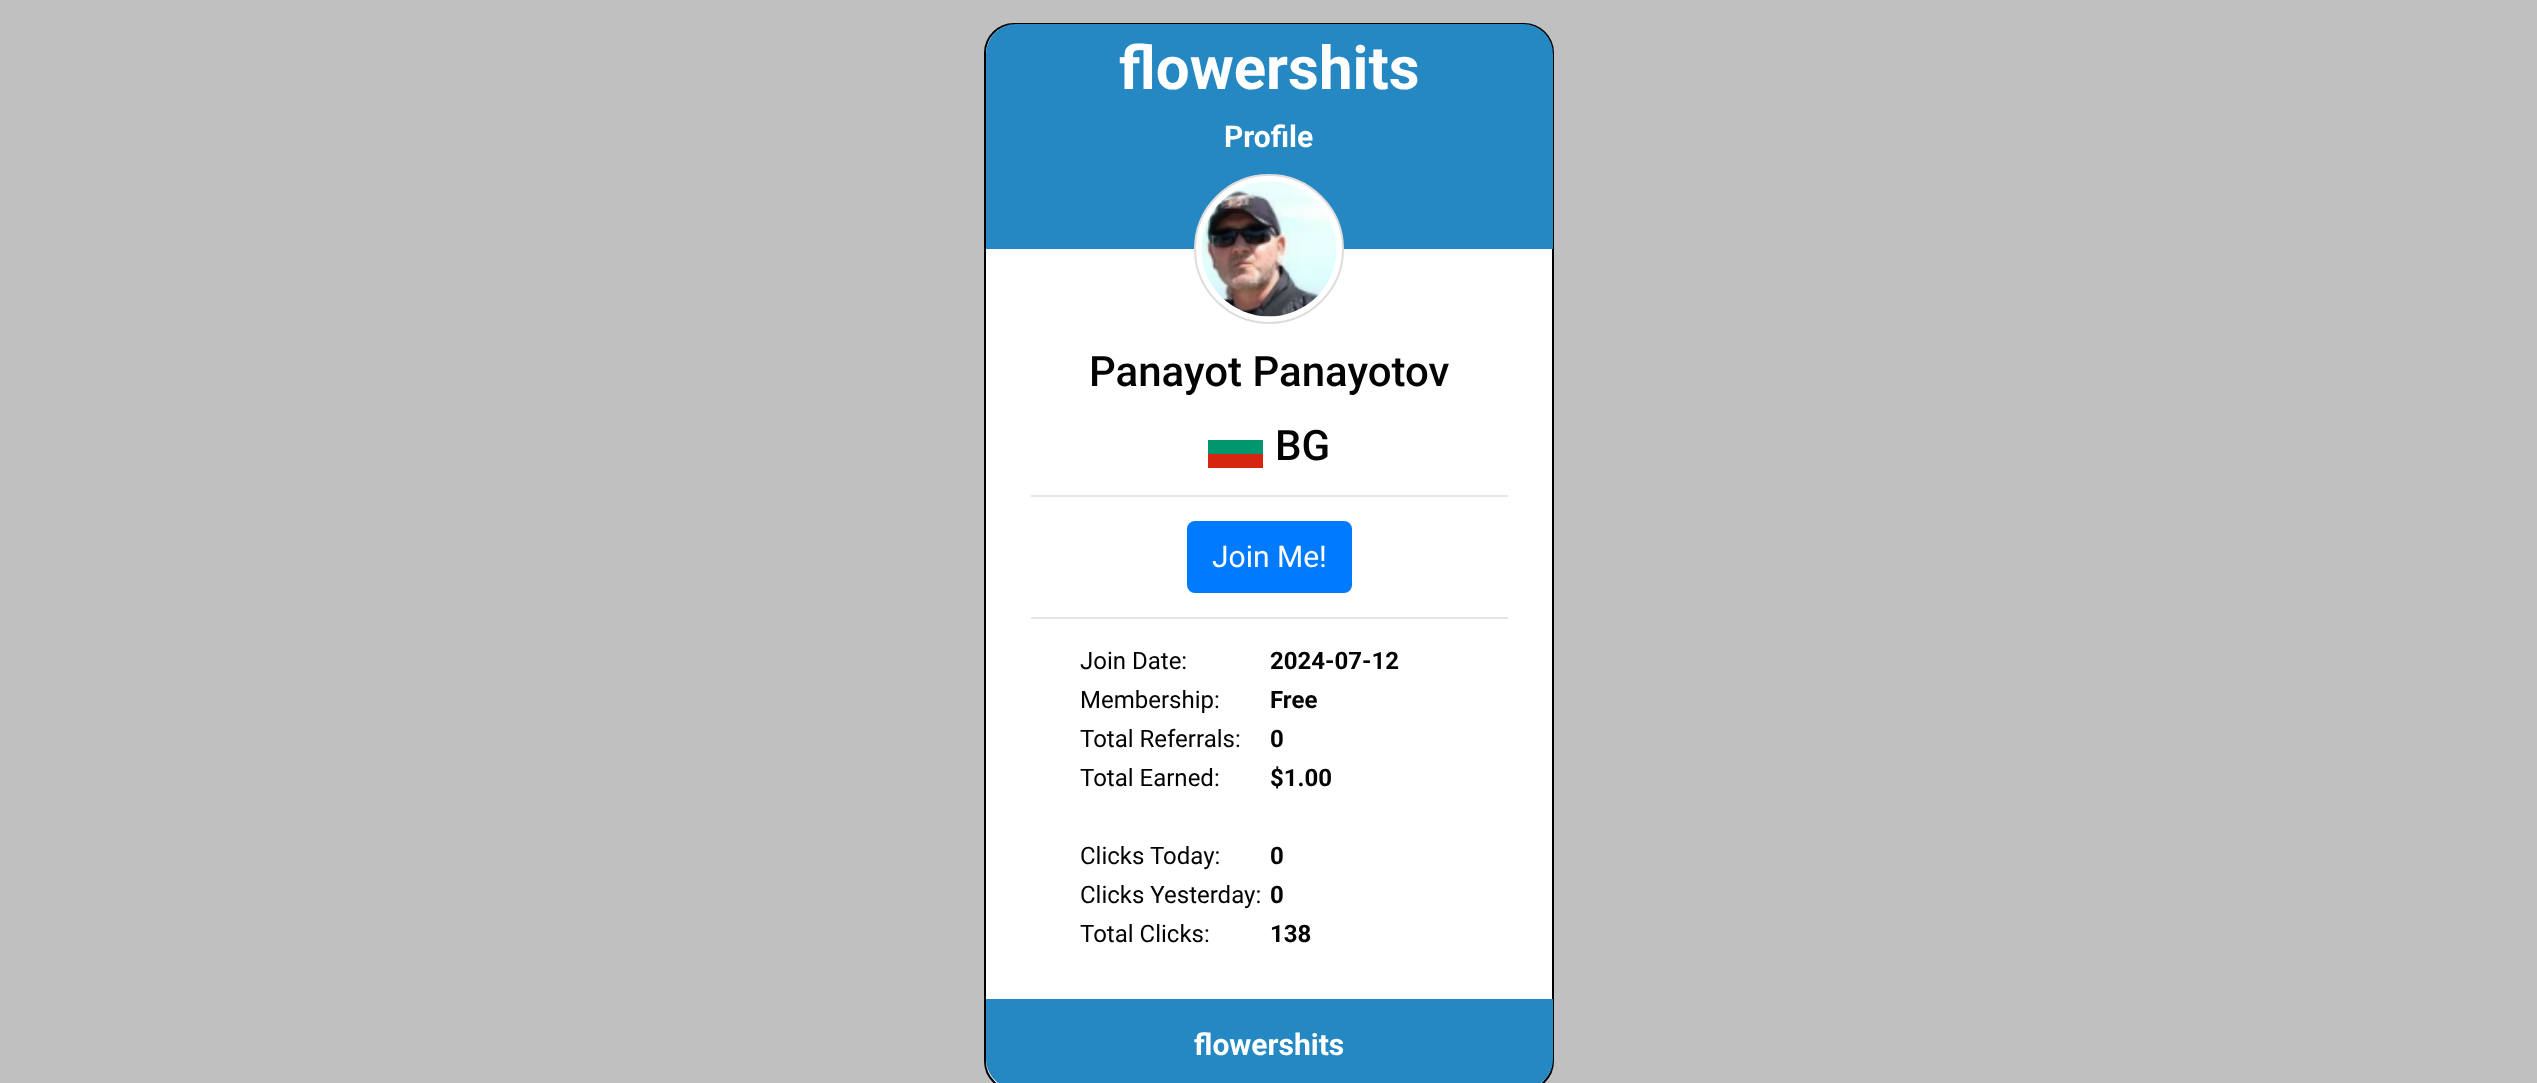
(async () => {
    const canvas = document.querySelector("canvas");
    canvas.width = 2537;
    canvas.height = 1083;
    const context = canvas.getContext("2d");
    context.miterLimit = 4;
    context.fontKerning = "normal";
    function write(s, x, y, font, color) {
        context.font = font;
        context.fillStyle = color;
        context.fillText(s, x, y);
    }
    function block(x, y, w, h, color) {
        context.fillStyle = color;
        context.fillRect(x, y, w, h);
    }
    async function photo(src, x, y, w, h) {
        const img = new Image();
        img.src = src;
        await img.decode();
        context.drawImage(img, x, y, w, h);
    }

    block(0, 0, 2537, 1083, "rgb(192, 192, 192)");
    context.fillStyle = "rgb(255, 255, 255)";
    context.beginPath();
    context.roundRect(985, 24, 568, 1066, 29);
    context.fill();
    context.strokeStyle = "rgb(0, 0, 0)";
    context.lineWidth = 2;
    context.stroke();
    context.fillStyle = "rgb(37, 136, 194)";
    context.beginPath();
    context.roundRect(986, 24, 567, 225, [30, 30, 0, 0]);
    context.fill();
    write("flowershits", 1119, 89, "bold 60px Roboto", "rgb(255, 255, 255)");
    write("Profile", 1224, 147, "bold 30px Roboto", "rgb(255, 255, 255)");
    context.beginPath();
    context.arc(1269, 249, 74, 0, Math.PI * 2);
    context.fill();
    context.strokeStyle = "rgb(221, 221, 221)";
    context.stroke();
    await photo("media/1.png", 1201, 181, 136, 136);
    write("Panayot Panayotov", 1089, 386, "500 42px Roboto", "rgb(3, 3, 3)");
    block(1208, 454, 55, 14, "rgb(214, 38, 18)");
    block(1208, 440, 55, 14, "rgb(0, 150, 110)");
    write("BG", 1275, 460, "500 42px Roboto", "rgb(3, 3, 3)");
    block(1031, 495, 477, 2, "rgb(230, 230, 230)");
    context.fillStyle = "rgb(0, 123, 255)";
    context.beginPath();
    context.roundRect(1188, 522, 163, 70, 7);
    context.fill();
    context.strokeStyle = "rgb(0, 123, 255)";
    context.stroke();
    write("Join Me!", 1212, 567, "30px Roboto", "rgb(255, 255, 255)");
    block(1031, 617, 477, 2, "rgb(230, 230, 230)");
    write("Join Date:", 1080, 669, "24px Roboto", "rgb(3, 3, 3)");
    write("2024-07-12", 1270, 669, "bold 24px Roboto", "rgb(3, 3, 3)");
    write("Membership:", 1080, 708, "24px Roboto", "rgb(3, 3, 3)");
    write("Free", 1270, 708, "bold 24px Roboto", "rgb(3, 3, 3)");
    write("Total Referrals:", 1080, 747, "24px Roboto", "rgb(3, 3, 3)");
    write("0", 1270, 747, "bold 24px Roboto", "rgb(3, 3, 3)");
    write("Total Earned:", 1080, 786, "24px Roboto", "rgb(3, 3, 3)");
    write("$1.00", 1270, 786, "bold 24px Roboto", "rgb(3, 3, 3)");
    write("Clicks Today:", 1080, 864, "24px Roboto", "rgb(3, 3, 3)");
    write("0", 1270, 864, "bold 24px Roboto", "rgb(3, 3, 3)");
    write("Clicks Yesterday:", 1080, 903, "24px Roboto", "rgb(3, 3, 3)");
    write("0", 1270, 903, "bold 24px Roboto", "rgb(3, 3, 3)");
    write("Total Clicks:", 1080, 942, "24px Roboto", "rgb(3, 3, 3)");
    write("138", 1270, 942, "bold 24px Roboto", "rgb(3, 3, 3)");
    context.fillStyle = "rgb(37, 136, 194)";
    context.beginPath();
    context.moveTo(986, 999);
    context.lineTo(1553, 999);
    context.lineTo(1553, 1059);
    context.bezierCurveTo(1553, 1075.5, 1539.5, 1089, 1523, 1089);
    context.lineTo(1016, 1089);
    context.bezierCurveTo(999.5, 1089, 986, 1075.5, 986, 1059);
    context.closePath();
    context.fill();
    write("flowershits", 1194, 1055, "bold 30px Roboto", "rgb(255, 255, 255)");
})();
